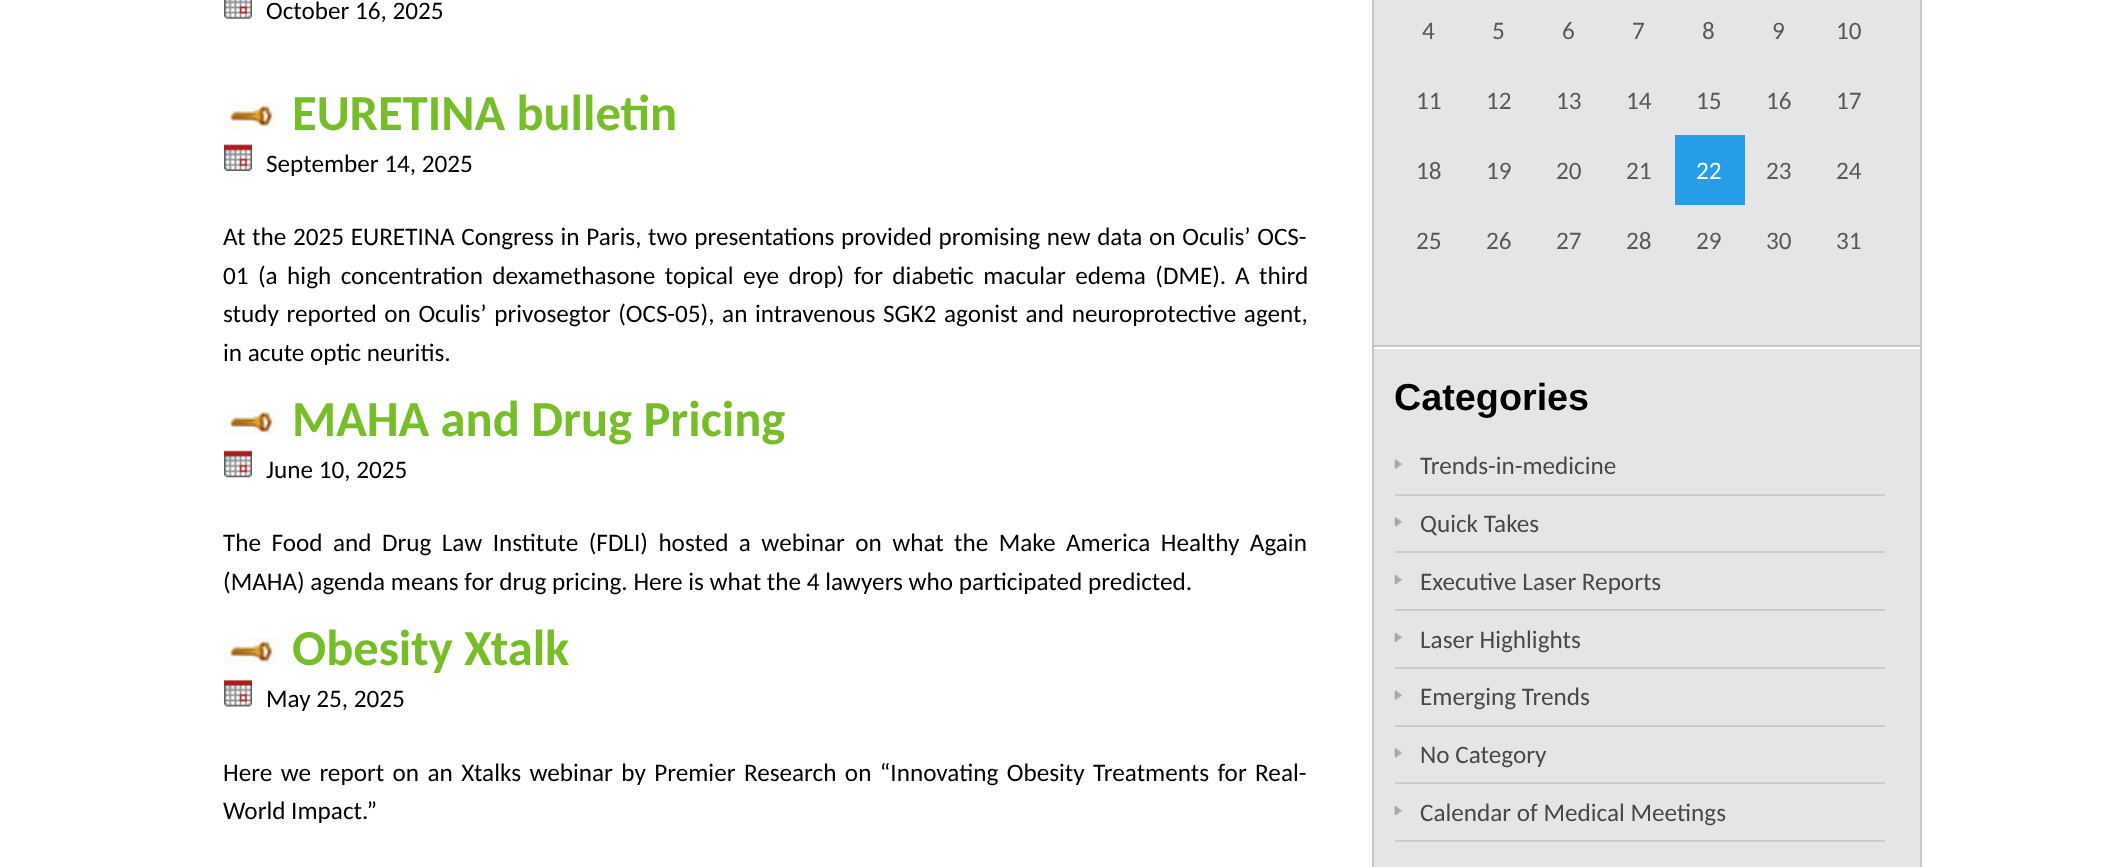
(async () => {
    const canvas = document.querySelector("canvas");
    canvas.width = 2126;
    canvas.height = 867;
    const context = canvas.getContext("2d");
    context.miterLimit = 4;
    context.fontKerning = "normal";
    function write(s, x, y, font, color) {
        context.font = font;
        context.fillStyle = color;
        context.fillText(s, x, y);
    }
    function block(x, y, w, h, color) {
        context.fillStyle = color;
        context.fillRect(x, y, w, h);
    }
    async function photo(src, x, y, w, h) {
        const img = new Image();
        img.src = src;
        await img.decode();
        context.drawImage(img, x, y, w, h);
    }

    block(0, 0, 2126, 867, "rgb(255, 255, 255)");
    await photo("media/1.png", 224, 0, 28, 19);
    write("October 16, 2025", 266, 19, "25.2px Carlito", "rgb(0, 0, 0)");
    await photo("media/2.png", 224, 102, 56, 27);
    write("EURETINA bulletin", 292, 130, "bold 50.5px Carlito", "rgb(118, 190, 39)");
    await photo("media/3.png", 224, 144, 28, 27);
    write("September 14, 2025", 266, 172, "25.2px Carlito", "rgb(0, 0, 0)");
    context.wordSpacing = "1px";
    write("At the 2025 EURETINA Congress in Paris, two presentations provided promising new data on Oculis’ OCS-", 223, 245, "25.2px Carlito", "rgb(0, 0, 0)");
    context.wordSpacing = "3.75px";
    write("01 (a high concentration dexamethasone topical eye drop) for diabetic macular edema (DME).", 223, 284, "25.2px Carlito", "rgb(0, 0, 0)");
    write("A third", 1235, 284, "25.2px Carlito", "rgb(0, 0, 0)");
    context.wordSpacing = "1.9px";
    write("study reported on Oculis’ privosegtor (OCS-05), an intravenous SGK2 agonist and neuroprotective agent,", 223, 322, "25.2px Carlito", "rgb(0, 0, 0)");
    context.wordSpacing = "0px";
    write("in acute optic neuritis.", 223, 361, "25.2px Carlito", "rgb(0, 0, 0)");
    await photo("media/4.png", 224, 409, 56, 27);
    write("MAHA and Drug Pricing", 292, 436, "bold 50.5px Carlito", "rgb(118, 190, 39)");
    await photo("media/5.png", 224, 450, 28, 28);
    write("June 10, 2025", 266, 478, "25.2px Carlito", "rgb(0, 0, 0)");
    context.wordSpacing = "4.75px";
    write("The Food and Drug Law Institute (FDLI) hosted a webinar on what the Make America Healthy Again", 223, 551, "25.2px Carlito", "rgb(0, 0, 0)");
    context.wordSpacing = "0px";
    write("(MAHA) agenda means for drug pricing. Here is what the 4 lawyers who participated predicted.", 223, 590, "25.2px Carlito", "rgb(0, 0, 0)");
    await photo("media/6.png", 224, 638, 56, 27);
    write("Obesity Xtalk", 292, 665, "bold 50.5px Carlito", "rgb(118, 190, 39)");
    await photo("media/7.png", 224, 679, 28, 28);
    write("May 25, 2025", 266, 707, "25.2px Carlito", "rgb(0, 0, 0)");
    context.wordSpacing = "2.75px";
    write("Here we report on an Xtalks webinar by Premier Research on “Innovating Obesity Treatments for Real-", 223, 781, "25.2px Carlito", "rgb(0, 0, 0)");
    context.wordSpacing = "0px";
    write("World Impact.”", 223, 819, "25.2px Carlito", "rgb(0, 0, 0)");
    block(1374, 0, 546, 867, "rgb(229, 229, 229)");
    block(1920, 0, 2, 867, "rgb(197, 199, 205)");
    block(1372, 0, 2, 867, "rgb(197, 199, 205)");
    block(1374, 345, 546, 2, "rgb(197, 199, 205)");
    write("4", 1422, 39, "25.2px Carlito", "rgb(84, 90, 92)");
    write("5", 1492, 39, "25.2px Carlito", "rgb(84, 90, 92)");
    write("6", 1562, 39, "25.2px Carlito", "rgb(84, 90, 92)");
    write("7", 1632, 39, "25.2px Carlito", "rgb(84, 90, 92)");
    write("8", 1702, 39, "25.2px Carlito", "rgb(84, 90, 92)");
    write("9", 1772, 39, "25.2px Carlito", "rgb(84, 90, 92)");
    write("10", 1836, 39, "25.2px Carlito", "rgb(84, 90, 92)");
    write("11", 1416, 109, "25.2px Carlito", "rgb(84, 90, 92)");
    write("12", 1486, 109, "25.2px Carlito", "rgb(84, 90, 92)");
    write("13", 1556, 109, "25.2px Carlito", "rgb(84, 90, 92)");
    write("14", 1626, 109, "25.2px Carlito", "rgb(84, 90, 92)");
    write("15", 1696, 109, "25.2px Carlito", "rgb(84, 90, 92)");
    write("16", 1766, 109, "25.2px Carlito", "rgb(84, 90, 92)");
    write("17", 1836, 109, "25.2px Carlito", "rgb(84, 90, 92)");
    write("18", 1416, 179, "25.2px Carlito", "rgb(84, 90, 92)");
    write("19", 1486, 179, "25.2px Carlito", "rgb(84, 90, 92)");
    write("20", 1556, 179, "25.2px Carlito", "rgb(84, 90, 92)");
    write("21", 1626, 179, "25.2px Carlito", "rgb(84, 90, 92)");
    block(1675, 135, 70, 70, "rgb(37, 157, 232)");
    write("22", 1696, 179, "25.2px Carlito", "rgb(255, 255, 255)");
    write("23", 1766, 179, "25.2px Carlito", "rgb(84, 90, 92)");
    write("24", 1836, 179, "25.2px Carlito", "rgb(84, 90, 92)");
    write("25", 1416, 249, "25.2px Carlito", "rgb(84, 90, 92)");
    write("26", 1486, 249, "25.2px Carlito", "rgb(84, 90, 92)");
    write("27", 1556, 249, "25.2px Carlito", "rgb(84, 90, 92)");
    write("28", 1626, 249, "25.2px Carlito", "rgb(84, 90, 92)");
    write("29", 1696, 249, "25.2px Carlito", "rgb(84, 90, 92)");
    write("30", 1766, 249, "25.2px Carlito", "rgb(84, 90, 92)");
    write("31", 1836, 249, "25.2px Carlito", "rgb(84, 90, 92)");
    block(1374, 347, 546, 2, "rgb(255, 255, 255)");
    write("Categories", 1394, 410, "bold 37.75px Liberation Sans", "rgb(0, 0, 0)");
    await photo("media/8.png", 1394, 459, 8, 10);
    block(1395, 494, 490, 2, "rgb(204, 204, 204)");
    write("Trends-in-medicine", 1420, 474, "25.2px Carlito", "rgb(72, 72, 72)");
    await photo("media/9.png", 1394, 517, 8, 10);
    block(1395, 551, 490, 2, "rgb(204, 204, 204)");
    write("Quick Takes", 1420, 532, "25.2px Carlito", "rgb(72, 72, 72)");
    await photo("media/10.png", 1394, 575, 8, 9);
    block(1395, 609, 490, 2, "rgb(204, 204, 204)");
    write("Executive Laser Reports", 1420, 590, "25.2px Carlito", "rgb(72, 72, 72)");
    await photo("media/11.png", 1394, 633, 8, 9);
    block(1395, 667, 490, 2, "rgb(204, 204, 204)");
    write("Laser Highlights", 1420, 648, "25.2px Carlito", "rgb(72, 72, 72)");
    await photo("media/8.png", 1394, 690, 8, 10);
    block(1395, 725, 490, 2, "rgb(204, 204, 204)");
    write("Emerging Trends", 1420, 705, "25.2px Carlito", "rgb(72, 72, 72)");
    await photo("media/9.png", 1394, 748, 8, 10);
    block(1395, 782, 490, 2, "rgb(204, 204, 204)");
    write("No Category", 1420, 763, "25.2px Carlito", "rgb(72, 72, 72)");
    await photo("media/12.png", 1394, 806, 8, 9);
    block(1395, 840, 490, 2, "rgb(204, 204, 204)");
    write("Calendar of Medical Meetings", 1420, 821, "25.2px Carlito", "rgb(72, 72, 72)");
})();
